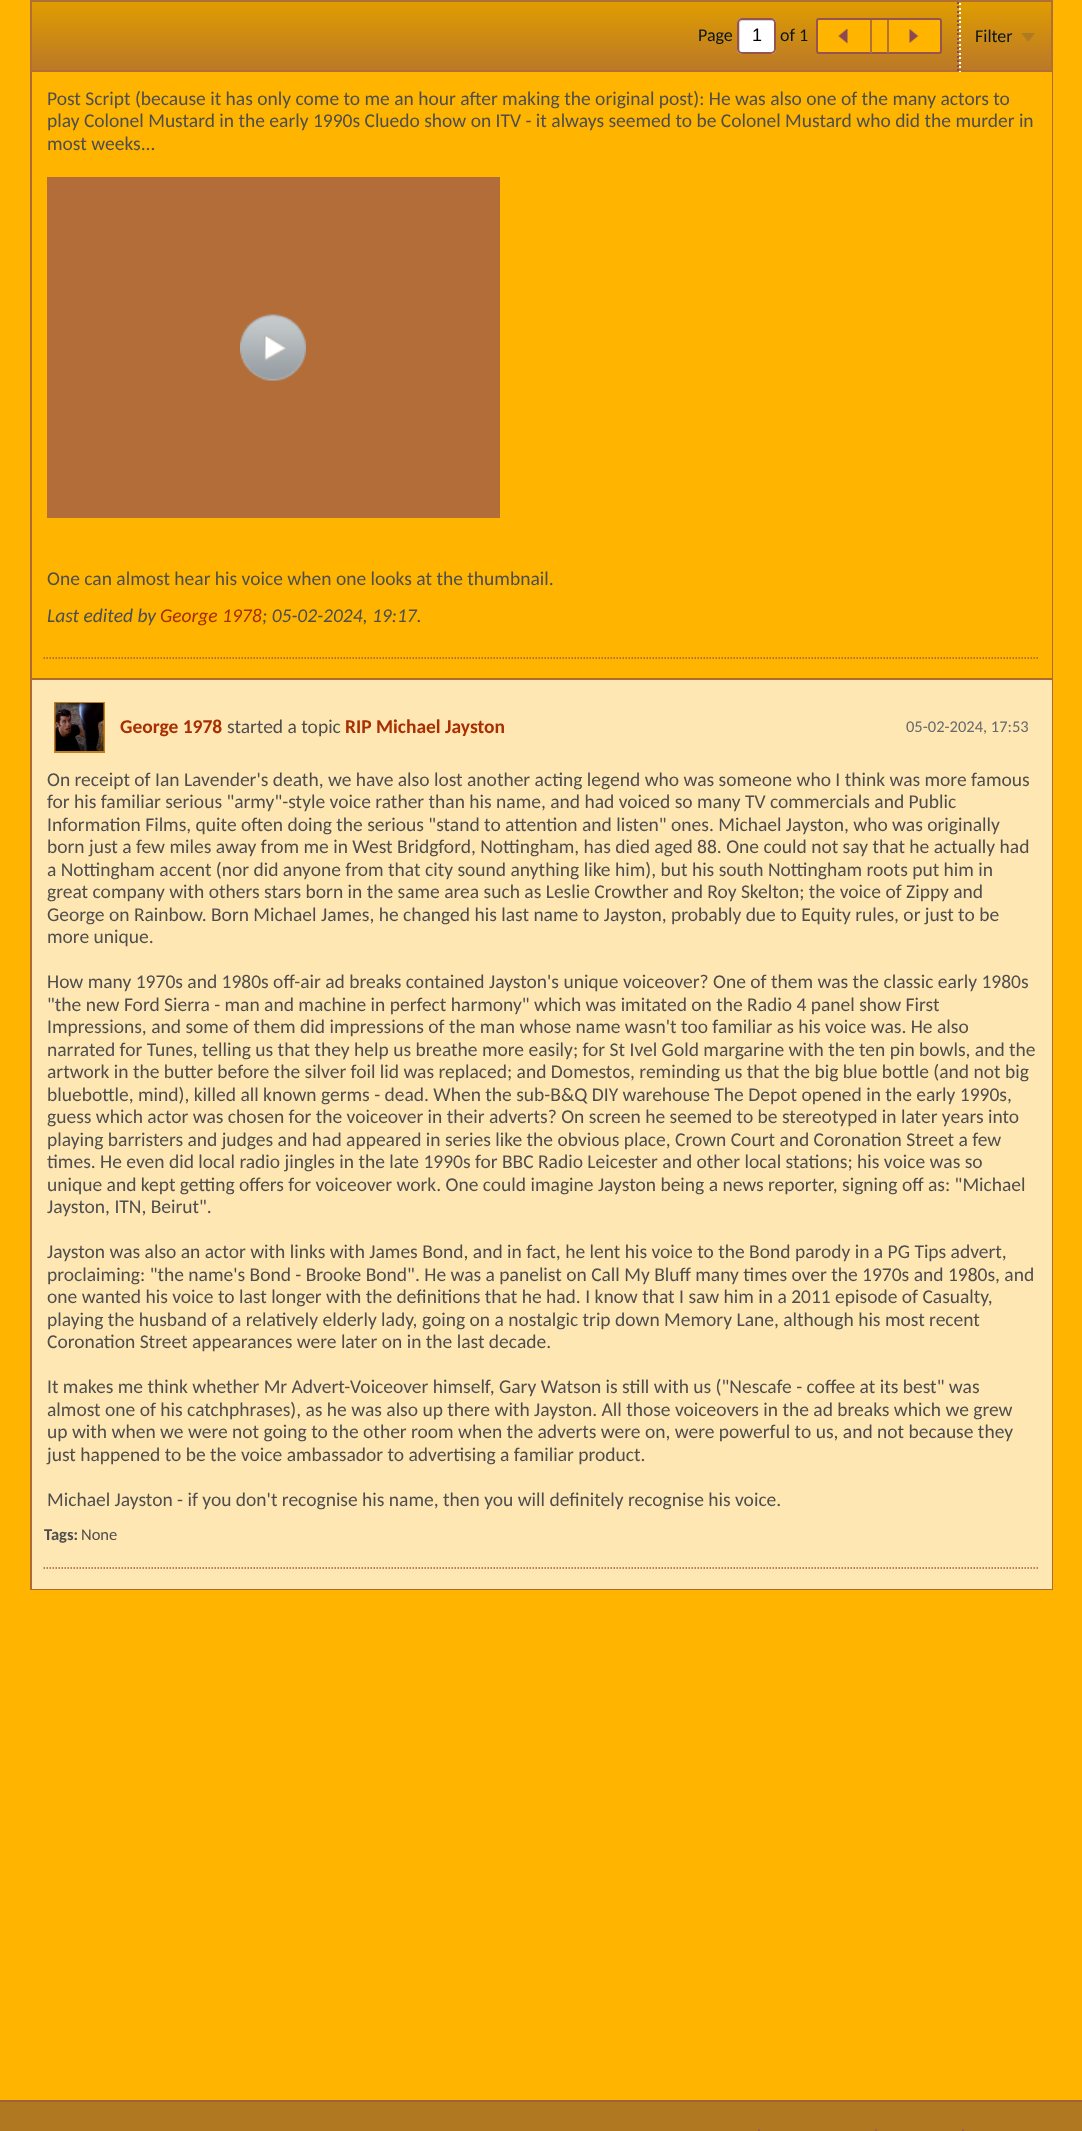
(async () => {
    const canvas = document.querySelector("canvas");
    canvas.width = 1082;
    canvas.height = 2131;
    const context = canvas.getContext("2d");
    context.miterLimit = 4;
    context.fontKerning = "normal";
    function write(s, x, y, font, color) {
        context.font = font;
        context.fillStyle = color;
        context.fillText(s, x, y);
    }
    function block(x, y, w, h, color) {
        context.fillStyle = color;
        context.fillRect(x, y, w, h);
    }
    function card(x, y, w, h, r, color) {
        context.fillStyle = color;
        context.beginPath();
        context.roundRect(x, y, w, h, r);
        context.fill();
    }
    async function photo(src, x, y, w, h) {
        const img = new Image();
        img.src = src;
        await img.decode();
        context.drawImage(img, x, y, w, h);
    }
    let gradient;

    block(0, 0, 1082, 2131, "rgb(255, 180, 0)");
    context.strokeStyle = "rgb(174, 108, 53)";
    context.lineWidth = 2;
    context.strokeRect(31, -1, 1021, 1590);
    gradient = context.createLinearGradient(542, 1.5, 542, 71);
    gradient.addColorStop(0, "rgb(224, 157, 0)");
    gradient.addColorStop(1, "rgb(186, 120, 40)");
    context.fillStyle = gradient;
    context.fillRect(32, 2, 1019, 68);
    context.strokeStyle = "rgb(176, 112, 52)";
    context.strokeRect(31, 1, 1021, 70);
    write("Page", 698, 41, "18px Carlito", "rgb(9, 22, 27)");
    card(737, 18, 39, 36, 5, "rgb(255, 255, 255)");
    context.fillStyle = "rgb(213, 213, 213)";
    context.beginPath();
    context.moveTo(742, 21);
    context.lineTo(773.5, 21);
    context.bezierCurveTo(773, 20.5, 772, 20, 771, 20);
    context.lineTo(741, 20);
    context.bezierCurveTo(739.5, 20, 738, 21.5, 738, 23);
    context.lineTo(738, 50);
    context.bezierCurveTo(738, 51.5, 739, 52.5, 740.5, 53);
    context.lineTo(740, 51);
    context.lineTo(740, 24);
    context.bezierCurveTo(740, 22, 741, 21, 742, 21);
    context.closePath();
    context.fill();
    context.beginPath();
    context.roundRect(738, 19, 37, 34, 4);
    context.strokeStyle = "rgb(149, 84, 79)";
    context.stroke();
    write("1", 752, 41, "18px Liberation Sans", "rgb(0, 0, 0)");
    write("of 1", 780, 41, "18px Carlito", "rgb(9, 22, 27)");
    context.fillStyle = "rgb(255, 180, 0)";
    context.beginPath();
    context.roundRect(817, 19, 124, 34, 2);
    context.fill();
    context.stroke();
    block(870, 20, 2, 33, "rgb(179, 114, 48)");
    await photo("media/1.png", 838, 29, 10, 15);
    block(887, 20, 2, 33, "rgb(179, 114, 48)");
    await photo("media/2.png", 909, 29, 10, 14);
    await photo("media/3.png", 957, 2, 2, 69);
    await photo("media/4.png", 959, 3, 2, 69);
    write("Filter", 975, 42, "18px Carlito", "rgb(9, 22, 27)");
    await photo("media/5.png", 1021, 33, 14, 9);
    block(1051, 72, 1, 606, "rgb(255, 180, 0)");
    write("Post Script (because it has only come to me an hour after making the original post): He was also one of the many actors to", 47, 105, "19.5px Carlito", "rgb(78, 78, 78)");
    write("play Colonel Mustard in the early 1990s Cluedo show on ITV - it always seemed to be Colonel Mustard who did the murder in", 47, 127, "19.5px Carlito", "rgb(78, 78, 78)");
    write("most weeks...", 47, 150, "19.5px Carlito", "rgb(78, 78, 78)");
    block(47, 177, 453, 341, "rgb(179, 109, 57)");
    await photo("media/6.png", 240, 314, 66, 67);
    write("One can almost hear his voice when one looks at the thumbnail.", 47, 585, "19.5px Carlito", "rgb(78, 78, 78)");
    write("Last edited by", 47, 622, "italic 19.5px Carlito", "rgb(78, 78, 78)");
    write("George 1978", 160, 622, "italic 19.5px Carlito", "rgb(167, 47, 1)");
    write("; 05-02-2024, 19:17.", 262, 622, "italic 19.5px Carlito", "rgb(78, 78, 78)");
    context.beginPath();
    context.moveTo(43.5, 658);
    context.lineTo(1039.5, 658);
    context.strokeStyle = "rgb(158, 92, 70)";
    context.lineWidth = 1.5;
    context.setLineDash([1.5, 1.5]);
    context.stroke();
    block(32, 680, 1020, 909, "rgb(255, 231, 179)");
    block(32, 678, 1020, 2, "rgb(174, 108, 53)");
    context.strokeStyle = "rgb(193, 125, 30)";
    context.lineWidth = 2;
    context.setLineDash([]);
    context.strokeRect(55, 703, 49, 49);
    await photo("media/7.png", 55, 703, 49, 48);
    write("George 1978", 120, 733, "bold 19.5px Carlito", "rgb(167, 47, 1)");
    write("started a topic", 227, 733, "19.5px Carlito", "rgb(78, 78, 78)");
    write("RIP Michael Jayston", 345, 733, "bold 19.5px Carlito", "rgb(167, 47, 1)");
    write("05-02-2024, 17:53", 906, 732, "16.5px Carlito", "rgb(101, 106, 109)");
    write("On receipt of Ian Lavender's death, we have also lost another acting legend who was someone who I think was more famous", 47, 786, "19.5px Carlito", "rgb(78, 78, 78)");
    write("for his familiar serious \"army\"-style voice rather than his name, and had voiced so many TV commercials and Public", 47, 808, "19.5px Carlito", "rgb(78, 78, 78)");
    write("Information Films, quite often doing the serious \"stand to attention and listen\" ones. Michael Jayston, who was originally", 47, 831, "19.5px Carlito", "rgb(78, 78, 78)");
    write("born just a few miles away from me in West Bridgford, Nottingham, has died aged 88. One could not say that he actually had", 47, 853, "19.5px Carlito", "rgb(78, 78, 78)");
    write("a Nottingham accent (nor did anyone from that city sound anything like him), but his south Nottingham roots put him in", 47, 876, "19.5px Carlito", "rgb(78, 78, 78)");
    write("great company with others stars born in the same area such as Leslie Crowther and Roy Skelton; the voice of Zippy and", 47, 898, "19.5px Carlito", "rgb(78, 78, 78)");
    write("George on Rainbow. Born Michael James, he changed his last name to Jayston, probably due to Equity rules, or just to be", 47, 921, "19.5px Carlito", "rgb(78, 78, 78)");
    write("more unique.", 47, 943, "19.5px Carlito", "rgb(78, 78, 78)");
    write("How many 1970s and 1980s off-air ad breaks contained Jayston's unique voiceover? One of them was the classic early 1980s", 47, 988, "19.5px Carlito", "rgb(78, 78, 78)");
    write("\"the new Ford Sierra - man and machine in perfect harmony\" which was imitated on the Radio 4 panel show First", 47, 1011, "19.5px Carlito", "rgb(78, 78, 78)");
    write("Impressions, and some of them did impressions of the man whose name wasn't too familiar as his voice was. He also", 47, 1033, "19.5px Carlito", "rgb(78, 78, 78)");
    write("narrated for Tunes, telling us that they help us breathe more easily; for St Ivel Gold margarine with the ten pin bowls, and the", 47, 1056, "19.5px Carlito", "rgb(78, 78, 78)");
    write("artwork in the butter before the silver foil lid was replaced; and Domestos, reminding us that the big blue bottle (and not big", 47, 1078, "19.5px Carlito", "rgb(78, 78, 78)");
    write("bluebottle, mind), killed all known germs - dead. When the sub-B&Q DIY warehouse The Depot opened in the early 1990s,", 47, 1101, "19.5px Carlito", "rgb(78, 78, 78)");
    write("guess which actor was chosen for the voiceover in their adverts? On screen he seemed to be stereotyped in later years into", 47, 1123, "19.5px Carlito", "rgb(78, 78, 78)");
    write("playing barristers and judges and had appeared in series like the obvious place, Crown Court and Coronation Street a few", 47, 1146, "19.5px Carlito", "rgb(78, 78, 78)");
    write("times. He even did local radio jingles in the late 1990s for BBC Radio Leicester and other local stations; his voice was so", 47, 1168, "19.5px Carlito", "rgb(78, 78, 78)");
    write("unique and kept getting offers for voiceover work. One could imagine Jayston being a news reporter, signing off as: \"Michael", 47, 1191, "19.5px Carlito", "rgb(78, 78, 78)");
    write("Jayston, ITN, Beirut\".", 47, 1213, "19.5px Carlito", "rgb(78, 78, 78)");
    write("Jayston was also an actor with links with James Bond, and in fact, he lent his voice to the Bond parody in a PG Tips advert,", 47, 1258, "19.5px Carlito", "rgb(78, 78, 78)");
    write("proclaiming: \"the name's Bond - Brooke Bond\". He was a panelist on Call My Bluff many times over the 1970s and 1980s, and", 47, 1281, "19.5px Carlito", "rgb(78, 78, 78)");
    write("one wanted his voice to last longer with the definitions that he had. I know that I saw him in a 2011 episode of Casualty,", 47, 1303, "19.5px Carlito", "rgb(78, 78, 78)");
    write("playing the husband of a relatively elderly lady, going on a nostalgic trip down Memory Lane, although his most recent", 47, 1326, "19.5px Carlito", "rgb(78, 78, 78)");
    write("Coronation Street appearances were later on in the last decade.", 47, 1348, "19.5px Carlito", "rgb(78, 78, 78)");
    write("It makes me think whether Mr Advert-Voiceover himself, Gary Watson is still with us (\"Nescafe - coffee at its best\" was", 47, 1393, "19.5px Carlito", "rgb(78, 78, 78)");
    write("almost one of his catchphrases), as he was also up there with Jayston. All those voiceovers in the ad breaks which we grew", 47, 1416, "19.5px Carlito", "rgb(78, 78, 78)");
    write("up with when we were not going to the other room when the adverts were on, were powerful to us, and not because they", 47, 1438, "19.5px Carlito", "rgb(78, 78, 78)");
    write("just happened to be the voice ambassador to advertising a familiar product.", 47, 1461, "19.5px Carlito", "rgb(78, 78, 78)");
    write("Michael Jayston - if you don't recognise his name, then you will definitely recognise his voice.", 47, 1506, "19.5px Carlito", "rgb(78, 78, 78)");
    write("Tags:", 44, 1540, "bold 16.5px Carlito", "rgb(78, 78, 78)");
    write("None", 81, 1540, "16.5px Carlito", "rgb(78, 78, 78)");
    context.beginPath();
    context.moveTo(43.5, 1568);
    context.lineTo(1039.5, 1568);
    context.strokeStyle = "rgb(158, 92, 70)";
    context.lineWidth = 1.5;
    context.setLineDash([1.5, 1.5]);
    context.stroke();
    block(0, 2102, 1082, 29, "rgb(176, 120, 33)");
    block(0, 2100, 1082, 2, "rgb(164, 96, 59)");
    block(758, 2129, 2, 2, "rgb(164, 96, 59)");
    block(875, 2129, 2, 2, "rgb(164, 96, 59)");
    block(962, 2129, 2, 2, "rgb(164, 96, 59)");
})();
